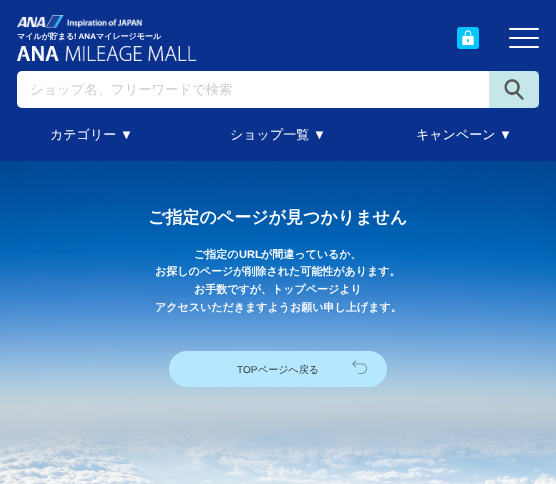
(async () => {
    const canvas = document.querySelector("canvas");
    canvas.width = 556;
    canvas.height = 484;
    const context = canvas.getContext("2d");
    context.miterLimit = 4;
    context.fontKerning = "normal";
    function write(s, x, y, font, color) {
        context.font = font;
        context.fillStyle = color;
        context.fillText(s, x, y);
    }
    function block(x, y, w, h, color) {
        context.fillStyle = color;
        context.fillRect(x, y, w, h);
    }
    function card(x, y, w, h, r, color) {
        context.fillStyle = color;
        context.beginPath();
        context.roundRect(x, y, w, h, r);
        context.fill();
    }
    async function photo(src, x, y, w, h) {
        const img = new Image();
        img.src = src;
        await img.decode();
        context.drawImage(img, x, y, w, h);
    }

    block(0, 0, 556, 484, "rgb(255, 255, 255)");
    block(0, 0, 556, 161, "rgb(11, 49, 143)");
    await photo("media/1.png", 17, 15, 125, 13);
    write("マイルが貯まる", 17, 39, "bold 8px WenQuanYi Zen Hei", "rgb(255, 255, 255)");
    write("! ANA", 74, 39, "bold 8px Liberation Sans", "rgb(255, 255, 255)");
    write("マイレージモール", 96, 39, "bold 8px WenQuanYi Zen Hei", "rgb(255, 255, 255)");
    await photo("media/2.png", 17, 46, 180, 15);
    await photo("media/3.png", 457, 27, 22, 22);
    card(509, 28, 30, 2, 1, "rgb(255, 255, 255)");
    card(509, 37, 30, 2, 1, "rgb(255, 255, 255)");
    card(509, 46, 30, 2, 1, "rgb(255, 255, 255)");
    card(17, 71, 522, 37, 5, "rgb(255, 255, 255)");
    write("ショップ名、フリーワードで検索", 30, 94, "500 13.3px WenQuanYi Zen Hei", "rgb(204, 204, 204)");
    block(489, 71, 50, 37, "rgba(62, 177, 184, 0.3)");
    await photo("media/4.png", 504, 79, 20, 21);
    write("カテゴリー", 50, 139, "500 13px WenQuanYi Zen Hei", "rgb(255, 255, 255)");
    write("▼", 120, 139, "13px Liberation Sans", "rgb(255, 255, 255)");
    write("ショップ一覧", 230, 139, "500 13px WenQuanYi Zen Hei", "rgb(255, 255, 255)");
    write("▼", 313, 139, "13px Liberation Sans", "rgb(255, 255, 255)");
    write("キャンペーン", 416, 139, "500 13px WenQuanYi Zen Hei", "rgb(255, 255, 255)");
    write("▼", 499, 139, "13px Liberation Sans", "rgb(255, 255, 255)");
    await photo("media/5.png", 0, 161, 556, 323);
    write("ご指定のページが見つかりません", 148, 223, "bold 17px WenQuanYi Zen Hei", "rgb(255, 255, 255)");
    write("ご指定の", 194, 258, "bold 11px WenQuanYi Zen Hei", "rgb(255, 255, 255)");
    write("URL", 239, 258, "bold 11px Liberation Sans", "rgb(255, 255, 255)");
    write("が間違っているか、", 261, 258, "bold 11px WenQuanYi Zen Hei", "rgb(255, 255, 255)");
    write("お探しのページが削除された可能性があります。", 155, 275, "bold 11px WenQuanYi Zen Hei", "rgb(255, 255, 255)");
    write("お手数ですが、トップページより", 194, 293, "bold 11px WenQuanYi Zen Hei", "rgb(255, 255, 255)");
    write("アクセスいただきますようお願い申し上げます。", 155, 311, "bold 11px WenQuanYi Zen Hei", "rgb(255, 255, 255)");
    card(169, 351, 218, 36, 18, "rgb(181, 232, 255)");
    await photo("media/6.png", 352, 360, 15, 14);
    write("TOP", 237, 373, "10px Liberation Sans", "rgb(51, 51, 51)");
    write("ページへ戻る", 258, 373, "500 10px WenQuanYi Zen Hei", "rgb(51, 51, 51)");
})();
